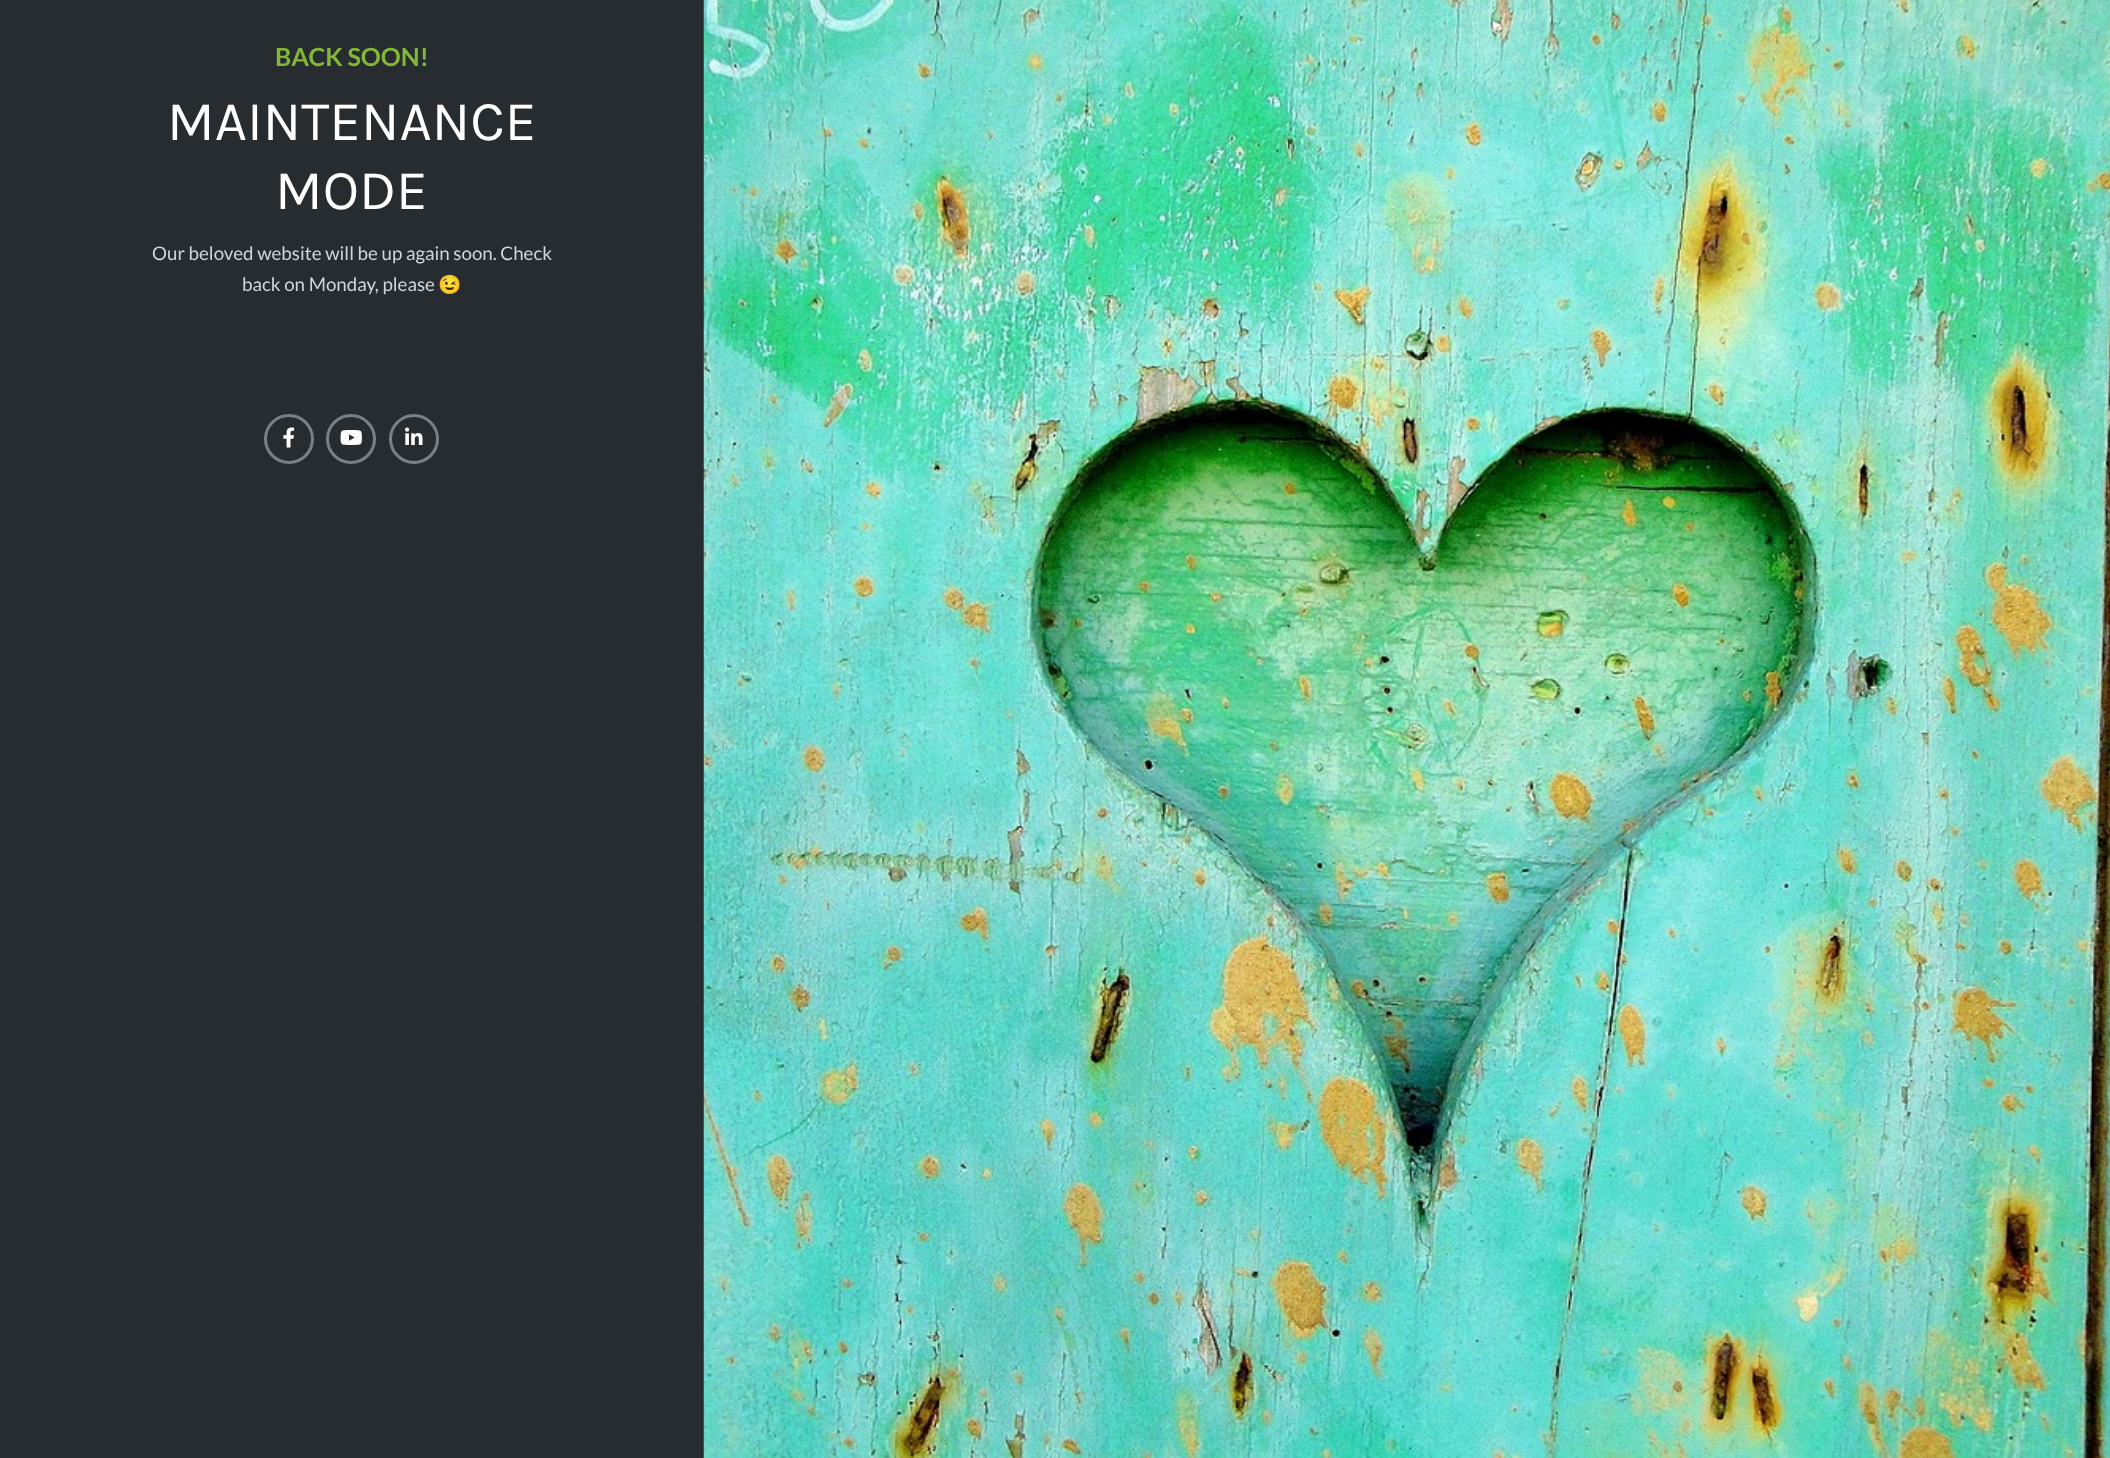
(async () => {
    const canvas = document.querySelector("canvas");
    canvas.width = 2110;
    canvas.height = 1458;
    const context = canvas.getContext("2d");
    context.miterLimit = 4;
    context.fontKerning = "normal";
    function write(s, x, y, font, color) {
        context.font = font;
        context.fillStyle = color;
        context.fillText(s, x, y);
    }
    function block(x, y, w, h, color) {
        context.fillStyle = color;
        context.fillRect(x, y, w, h);
    }
    async function photo(src, x, y, w, h) {
        const img = new Image();
        img.src = src;
        await img.decode();
        context.drawImage(img, x, y, w, h);
    }

    block(0, 0, 2110, 1458, "rgb(39, 44, 48)");
    write("BACK SOON!", 275, 66, "bold 25px Lato", "rgb(131, 183, 53)");
    write("MAINTENANCE", 167, 140, "56.25px Karla", "rgb(255, 255, 255)");
    write("MODE", 275, 209, "56.25px Karla", "rgb(255, 255, 255)");
    write("Our beloved website will be up again soon. Check", 152, 260, "18.75px Lato", "rgb(212, 213, 214)");
    write("back on Monday, please", 242, 291, "18.75px Lato", "rgb(212, 213, 214)");
    write("😉", 438, 291, "18.75px Noto Color Emoji", "rgb(212, 213, 214)");
    context.beginPath();
    context.arc(289, 439, 23.5, 0, Math.PI * 2);
    context.strokeStyle = "rgb(125, 128, 131)";
    context.lineWidth = 3;
    context.stroke();
    await photo("media/1.png", 283, 427, 12, 21);
    context.beginPath();
    context.arc(351, 439, 23.5, 0, Math.PI * 2);
    context.stroke();
    await photo("media/2.png", 340, 430, 22, 15);
    context.beginPath();
    context.arc(414, 439, 23.5, 0, Math.PI * 2);
    context.stroke();
    await photo("media/3.png", 405, 427, 18, 18);
    await photo("media/4.png", 703, 0, 1407, 1458);
})();
